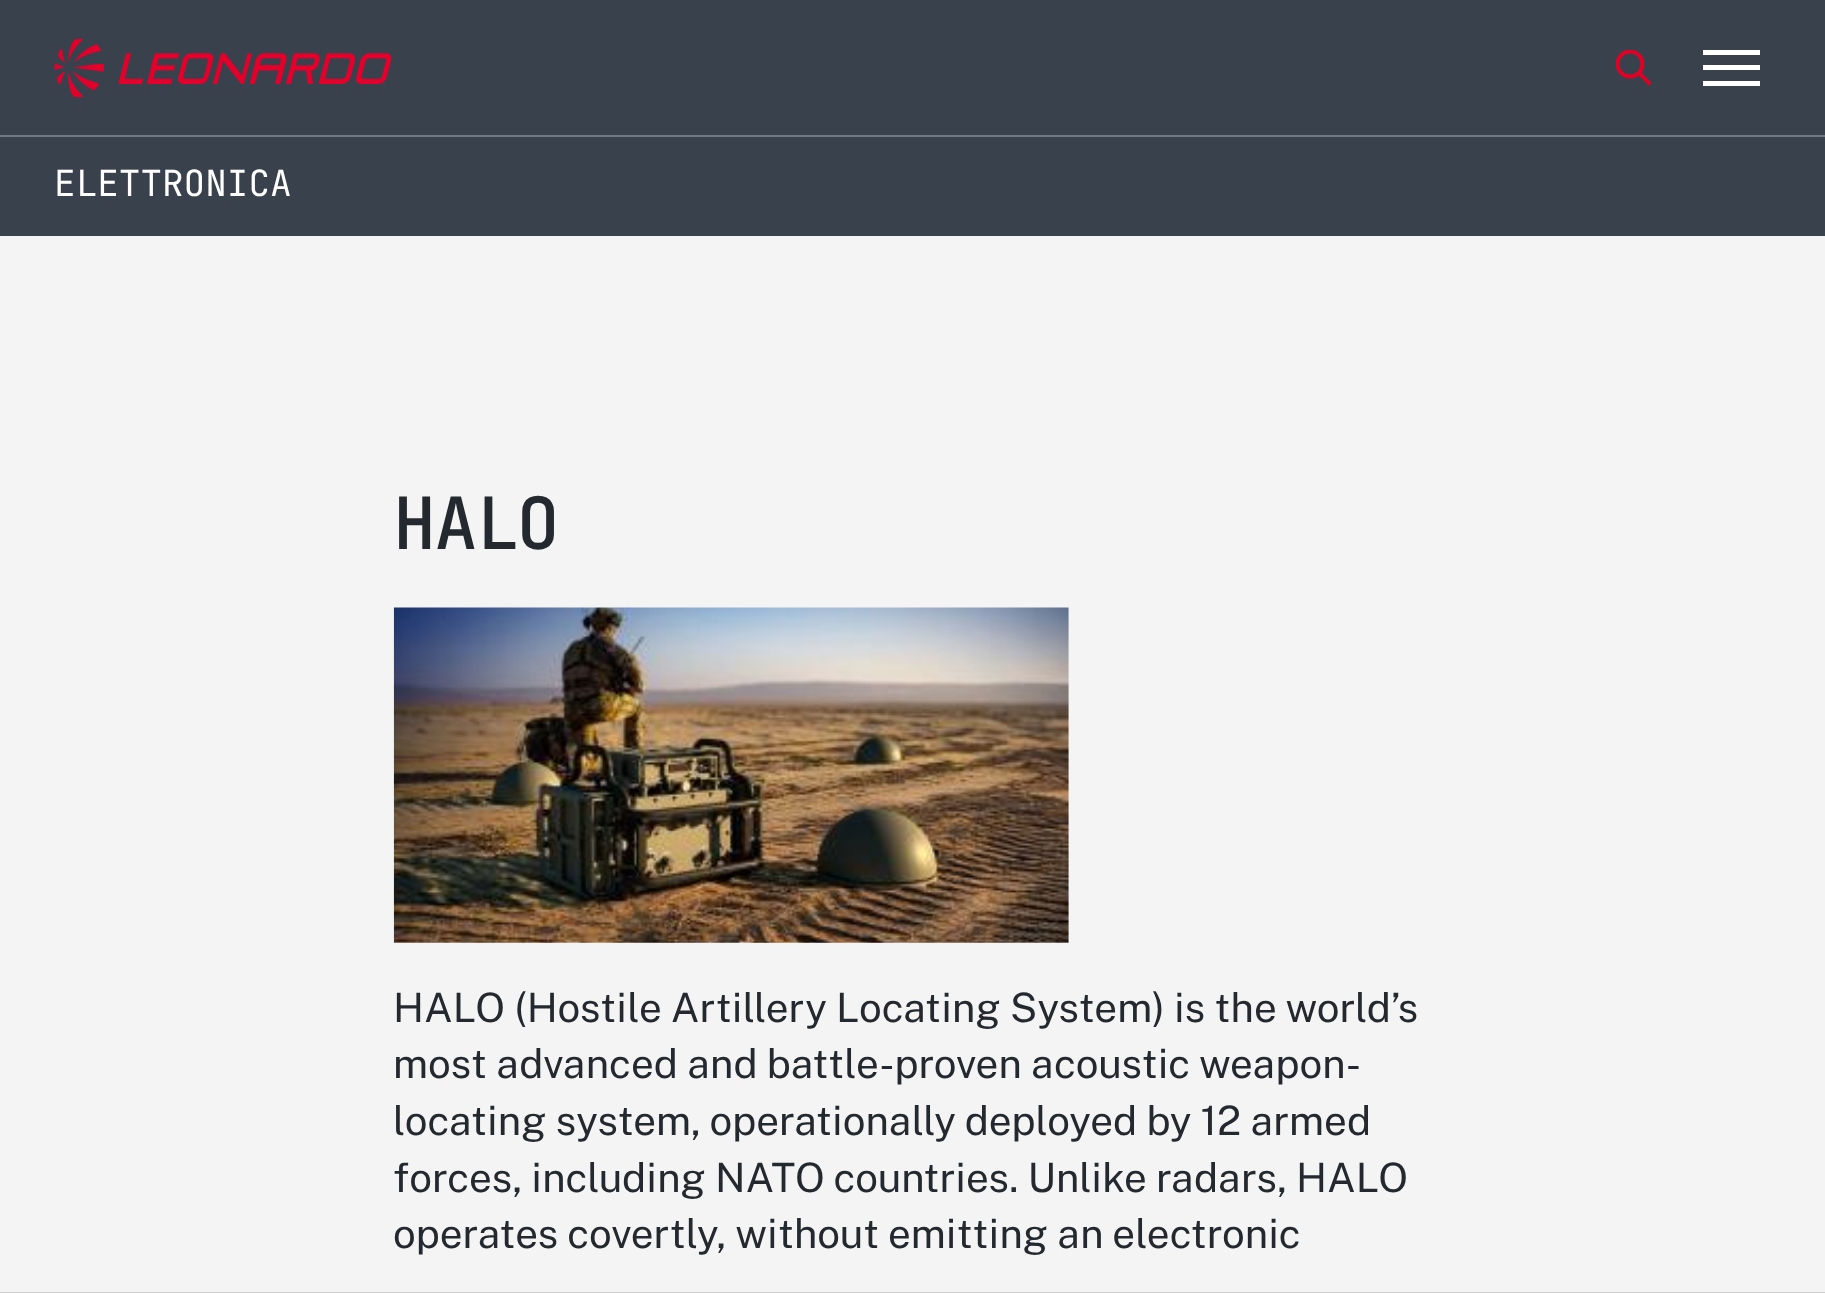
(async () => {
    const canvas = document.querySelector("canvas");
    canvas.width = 1825;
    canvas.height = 1293;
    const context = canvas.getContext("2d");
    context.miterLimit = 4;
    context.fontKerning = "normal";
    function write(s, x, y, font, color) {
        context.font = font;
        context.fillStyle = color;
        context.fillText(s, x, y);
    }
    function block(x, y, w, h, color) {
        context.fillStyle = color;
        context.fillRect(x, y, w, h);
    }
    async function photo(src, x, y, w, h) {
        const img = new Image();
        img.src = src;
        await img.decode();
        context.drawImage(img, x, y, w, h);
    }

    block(0, 0, 1825, 1293, "rgb(57, 65, 76)");
    await photo("media/1.png", 54, 38, 338, 59);
    context.save();
    context.beginPath();
    context.rect(1616, 50, 36, 36);
    context.clip();
    context.beginPath();
    context.arc(1630, 64, 12.5, 0, Math.PI * 2);
    context.strokeStyle = "rgb(228, 0, 37)";
    context.lineWidth = 3.8;
    context.stroke();
    context.restore();
    context.beginPath();
    context.moveTo(1640, 74);
    context.lineTo(1649, 83);
    context.strokeStyle = "rgb(228, 0, 37)";
    context.lineWidth = 3.8;
    context.lineCap = "square";
    context.stroke();
    block(1703, 50, 57, 5, "rgb(255, 255, 255)");
    block(1703, 65, 57, 5, "rgb(255, 255, 255)");
    block(1703, 81, 57, 5, "rgb(255, 255, 255)");
    block(0, 135, 1825, 2, "rgb(116, 122, 130)");
    write("ELETTRONICA", 54, 196, "36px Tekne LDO", "rgb(255, 255, 255)");
    block(0, 236, 1825, 1056, "rgb(244, 244, 244)");
    context.letterSpacing = "-2px";
    write("HALO", 393, 549, "600 72px Tekne LDO", "rgb(36, 41, 47)");
    await photo("media/2.png", 393, 607, 676, 336);
    context.letterSpacing = "0px";
    write("HALO (Hostile Artillery Locating System) is the world’s", 393, 1022, "100 40.5px Public Sans", "rgb(36, 41, 47)");
    write("most advanced and battle-proven acoustic weapon-", 393, 1078, "100 40.5px Public Sans", "rgb(36, 41, 47)");
    write("locating system, operationally deployed by 12 armed", 393, 1135, "100 40.5px Public Sans", "rgb(36, 41, 47)");
    write("forces, including NATO countries. Unlike radars, HALO", 393, 1192, "100 40.5px Public Sans", "rgb(36, 41, 47)");
    write("operates covertly, without emitting an electronic", 393, 1248, "100 40.5px Public Sans", "rgb(36, 41, 47)");
    block(0, 1292, 1825, 1, "rgb(204, 204, 204)");
})();
